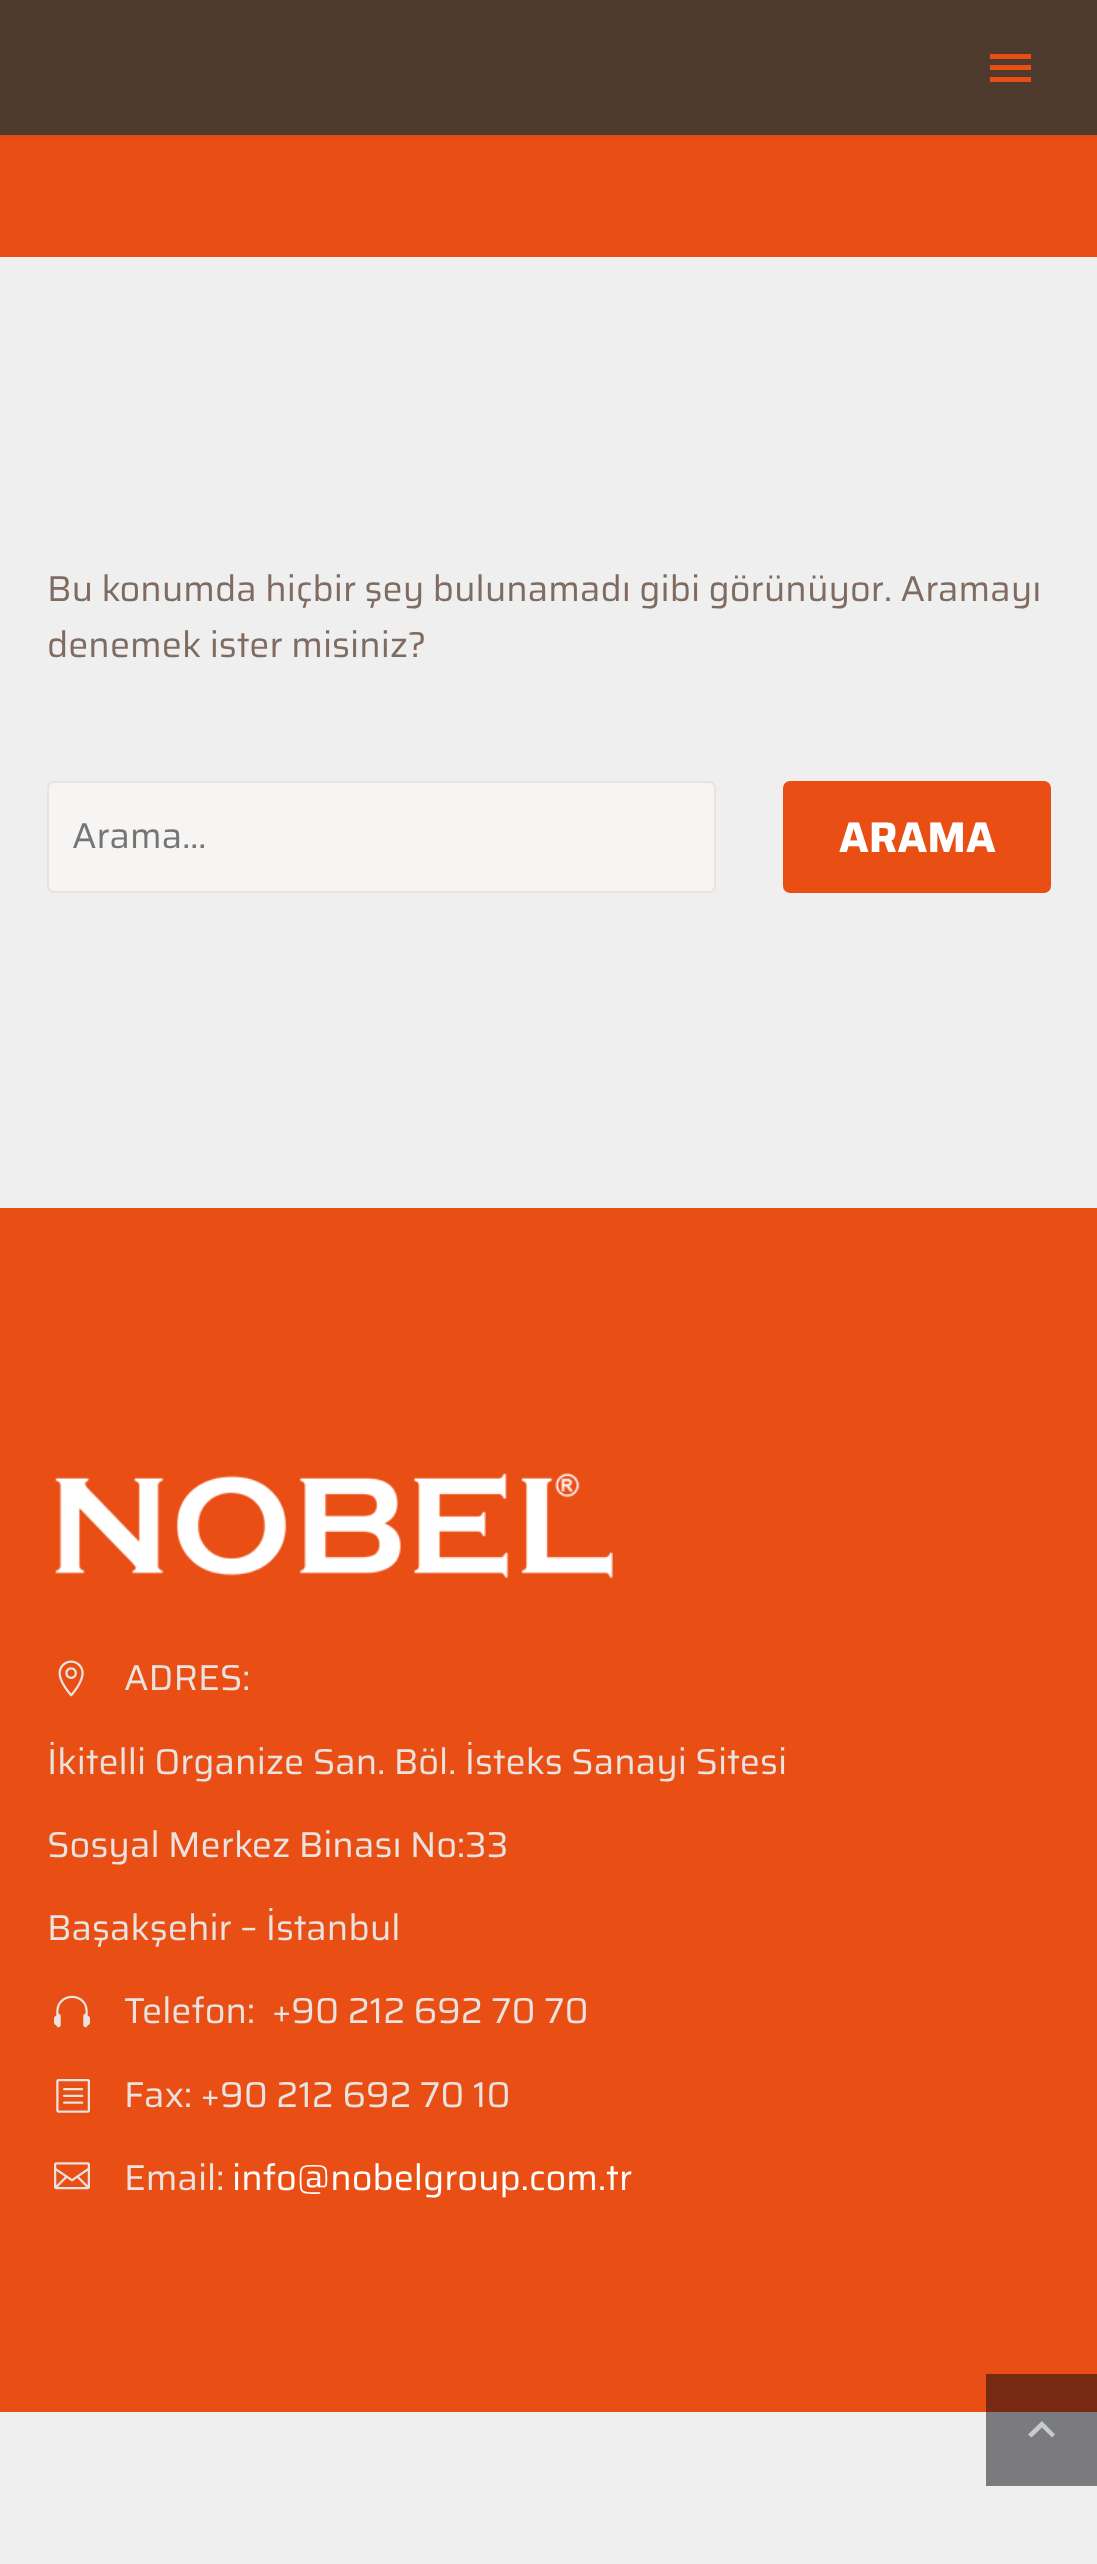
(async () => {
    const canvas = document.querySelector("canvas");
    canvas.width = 1097;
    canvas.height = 2564;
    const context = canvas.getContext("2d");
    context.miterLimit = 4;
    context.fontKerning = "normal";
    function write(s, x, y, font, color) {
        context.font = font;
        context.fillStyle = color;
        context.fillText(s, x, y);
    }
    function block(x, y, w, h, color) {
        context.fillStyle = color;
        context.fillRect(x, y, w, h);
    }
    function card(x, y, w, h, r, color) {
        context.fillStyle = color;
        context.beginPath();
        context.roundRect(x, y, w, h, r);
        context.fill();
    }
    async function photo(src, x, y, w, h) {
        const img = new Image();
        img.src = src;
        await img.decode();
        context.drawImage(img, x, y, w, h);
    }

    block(0, 0, 1097, 2564, "rgb(239, 239, 239)");
    block(986, 2412, 111, 74, "rgb(123, 123, 127)");
    block(0, 135, 1097, 122, "rgb(233, 78, 20)");
    block(0, 0, 1097, 135, "rgb(79, 59, 46)");
    context.save();
    context.beginPath();
    context.rect(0, 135, 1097, 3);
    context.clip();
    context.fillStyle = "rgba(56, 69, 84, 0.2)";
    context.filter = "blur(2px)";
    context.beginPath();
    context.rect(0, 0, 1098, 135);
    context.fill();
    context.filter = "none";
    context.restore();
    block(990, 54, 41, 5, "rgb(233, 78, 20)");
    block(990, 65, 41, 5, "rgb(233, 78, 20)");
    block(990, 77, 41, 5, "rgb(233, 78, 20)");
    write("Bu konumda hiçbir şey bulunamadı gibi görünüyor. Aramayı", 47, 601, "36px Saira", "rgb(127, 107, 95)");
    write("denemek ister misiniz?", 47, 657, "36px Saira", "rgb(127, 107, 95)");
    context.fillStyle = "rgb(247, 245, 244)";
    context.beginPath();
    context.roundRect(48, 782, 667, 110, 6);
    context.fill();
    context.strokeStyle = "rgb(232, 227, 223)";
    context.lineWidth = 2;
    context.stroke();
    write("Arama...", 72, 848, "36px Saira", "rgb(117, 117, 117)");
    card(783, 781, 268, 112, 7, "rgb(233, 78, 20)");
    write("ARAMA", 839, 852, "bold 43px Saira", "rgb(255, 255, 255)");
    block(0, 1208, 1097, 1204, "rgb(233, 78, 20)");
    block(986, 2374, 111, 38, "rgb(120, 42, 18)");
    await photo("media/1.png", 55, 1473, 558, 106);
    await photo("media/2.png", 58, 1660, 14, 37);
    await photo("media/3.png", 72, 1660, 12, 36);
    write("ADRES:", 124, 1690, "36px Saira", "rgb(232, 227, 223)");
    write("İkitelli Organize San. Böl. İsteks Sanayi Sitesi", 47, 1774, "36px Saira", "rgb(232, 227, 223)");
    write("Sosyal Merkez Binası No:33", 47, 1857, "36px Saira", "rgb(232, 227, 223)");
    write("Başakşehir – İstanbul", 47, 1940, "36px Saira", "rgb(232, 227, 223)");
    await photo("media/4.png", 54, 1995, 18, 33);
    await photo("media/5.png", 72, 1995, 18, 33);
    write("Telefon:  +90 212 692 70 70", 124, 2023, "36px Saira", "rgb(232, 227, 223)");
    await photo("media/6.png", 56, 2079, 16, 34);
    await photo("media/7.png", 72, 2079, 18, 34);
    write("Fax: +90 212 692 70 10", 124, 2107, "36px Saira", "rgb(232, 227, 223)");
    await photo("media/8.png", 54, 2162, 18, 28);
    await photo("media/9.png", 72, 2162, 18, 28);
    write("Email:", 124, 2190, "36px Saira", "rgb(232, 227, 223)");
    write("info@nobelgroup.com.tr", 232, 2190, "36px Saira", "rgb(255, 255, 255)");
    context.fillStyle = "rgb(196, 204, 210)";
    context.beginPath();
    context.moveTo(1031.5, 2437.5);
    context.lineTo(1042, 2427.5);
    context.lineTo(1052, 2437.5);
    context.lineTo(1055, 2434.5);
    context.lineTo(1042, 2421);
    context.lineTo(1028, 2434.5);
    context.closePath();
    context.fill();
})();
